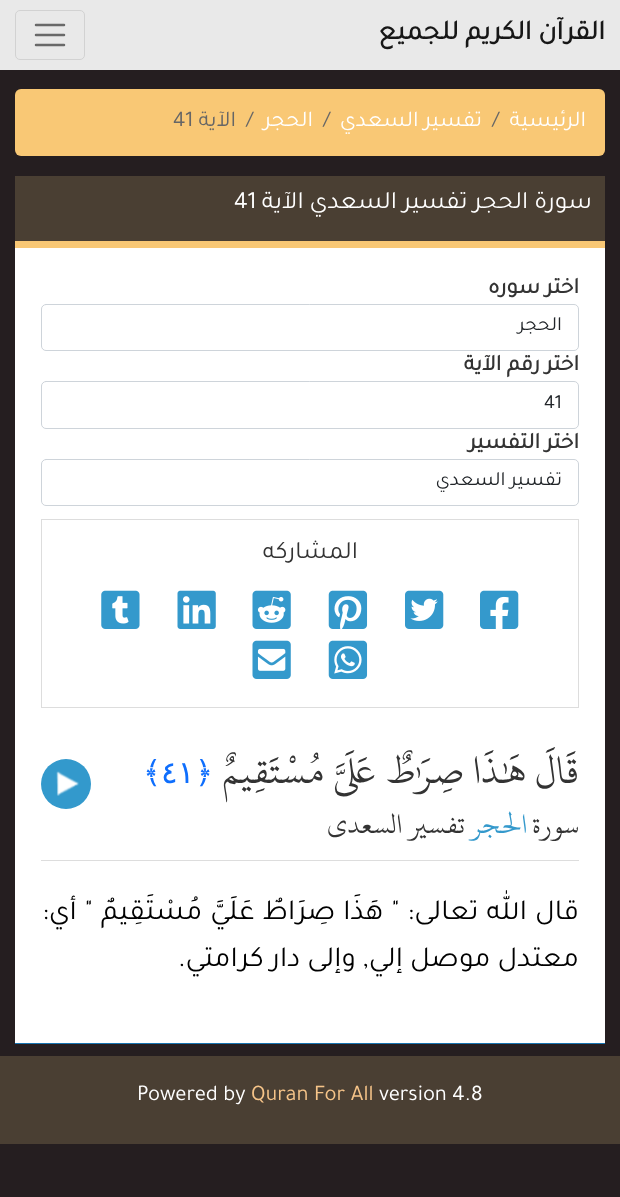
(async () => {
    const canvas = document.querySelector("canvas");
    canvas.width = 620;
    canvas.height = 1197;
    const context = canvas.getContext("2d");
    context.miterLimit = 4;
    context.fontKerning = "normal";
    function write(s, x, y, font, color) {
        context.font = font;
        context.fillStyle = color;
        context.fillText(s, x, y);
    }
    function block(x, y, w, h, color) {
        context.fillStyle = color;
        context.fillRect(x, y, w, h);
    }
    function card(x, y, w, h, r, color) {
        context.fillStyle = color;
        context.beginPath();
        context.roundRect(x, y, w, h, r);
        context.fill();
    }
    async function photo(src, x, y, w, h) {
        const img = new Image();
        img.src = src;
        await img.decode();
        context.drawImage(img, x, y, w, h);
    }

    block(0, 0, 620, 1197, "rgb(37, 30, 32)");
    block(0, 0, 620, 70, "rgb(233, 233, 233)");
    context.direction = "rtl";
    write("القرآن الكريم للجميع", 605, 39, "bold 27.5px Tajawal", "rgb(23, 23, 23)");
    context.beginPath();
    context.roundRect(15.5, 10.5, 69, 49, 4.5);
    context.strokeStyle = "rgb(210, 210, 210)";
    context.stroke();
    context.beginPath();
    context.moveTo(36, 25);
    context.lineTo(64, 25);
    context.moveTo(36, 35);
    context.lineTo(64, 35);
    context.moveTo(36, 45);
    context.lineTo(64, 45);
    context.strokeStyle = "rgb(105, 105, 105)";
    context.lineWidth = 2.5;
    context.lineCap = "round";
    context.stroke();
    card(15, 89, 590, 67, 6, "rgb(249, 200, 117)");
    write("الرئيسية", 586, 126, "22.5px Tajawal", "rgb(255, 255, 255)");
    context.direction = "ltr";
    write("/", 492, 126, "22.5px Tajawal", "rgb(102, 102, 102)");
    context.direction = "rtl";
    write("تفسير السعدي", 482, 126, "22.5px Tajawal", "rgb(255, 255, 255)");
    context.direction = "ltr";
    write("/", 323, 126, "22.5px Tajawal", "rgb(102, 102, 102)");
    context.direction = "rtl";
    write("الحجر", 313, 126, "22.5px Tajawal", "rgb(255, 255, 255)");
    context.direction = "ltr";
    write("/", 246, 126, "22.5px Tajawal", "rgb(102, 102, 102)");
    context.direction = "rtl";
    write("الآية", 236, 126, "22.5px Tajawal", "rgb(102, 102, 102)");
    context.direction = "ltr";
    write("41", 173, 126, "22.5px Tajawal", "rgb(102, 102, 102)");
    block(15, 248, 590, 795, "rgb(255, 255, 255)");
    block(15, 1043, 590, 1, "rgb(23, 116, 177)");
    block(15, 176, 590, 65, "rgb(74, 63, 51)");
    block(15, 241, 590, 7, "rgb(249, 200, 117)");
    context.direction = "rtl";
    write("سورة الحجر تفسير السعدي الآية", 592, 208, "25px Tajawal", "rgb(255, 255, 255)");
    context.direction = "ltr";
    write("41", 234, 208, "25px Tajawal", "rgb(255, 255, 255)");
    context.direction = "rtl";
    write("اختر سوره", 579, 293, "bold 22.5px Tajawal", "rgb(51, 51, 51)");
    context.beginPath();
    context.roundRect(41.5, 304.5, 537, 46, 4.5);
    context.strokeStyle = "rgb(206, 212, 218)";
    context.lineWidth = 1;
    context.stroke();
    write("الحجر", 562, 330, "20px Tajawal", "rgb(33, 37, 41)");
    write("اختر رقم الآية", 579, 370, "bold 22.5px Tajawal", "rgb(51, 51, 51)");
    context.beginPath();
    context.roundRect(41.5, 381.5, 537, 47, 4.5);
    context.stroke();
    context.direction = "ltr";
    write("41", 544, 408, "20px Tajawal", "rgb(33, 37, 41)");
    context.direction = "rtl";
    write("اختر التفسير", 579, 448, "bold 22.5px Tajawal", "rgb(51, 51, 51)");
    context.beginPath();
    context.roundRect(41.5, 459.5, 537, 46, 4.5);
    context.stroke();
    write("تفسير السعدي", 562, 485, "20px Tajawal", "rgb(33, 37, 41)");
    context.strokeStyle = "rgb(221, 221, 221)";
    context.strokeRect(41.5, 519.5, 537, 188);
    write("المشاركه", 358, 558, "25px Tajawal", "rgb(51, 51, 51)");
    await photo("media/1.png", 480, 590, 39, 39);
    await photo("media/2.png", 405, 590, 39, 39);
    await photo("media/3.png", 328, 590, 40, 39);
    await photo("media/4.png", 252, 590, 39, 39);
    await photo("media/5.png", 177, 590, 39, 39);
    await photo("media/6.png", 101, 590, 39, 39);
    await photo("media/7.png", 328, 640, 40, 39);
    await photo("media/8.png", 252, 640, 39, 39);
    block(41, 860, 538, 1, "rgb(221, 221, 221)");
    write("قَالَ هَٰذَا صِرَٰطٌ عَلَىَّ مُسْتَقِيمٌ", 579, 783, "42.75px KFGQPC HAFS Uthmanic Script", "rgb(51, 51, 51)");
    context.direction = "ltr";
    write("﴿", 195, 783, "500 31px Cascadia Code", "rgb(14, 110, 253)");
    write("٤١", 161, 783, "31px DejaVu Sans", "rgb(14, 110, 253)");
    write("﴾", 143, 783, "500 31px Cascadia Code", "rgb(14, 110, 253)");
    context.fillStyle = "rgb(51, 153, 204)";
    context.beginPath();
    context.arc(66, 784, 25, 0, Math.PI * 2);
    context.fill();
    await photo("media/9.png", 56, 771, 23, 25);
    context.direction = "rtl";
    write("سورة", 579, 833, "30px KFGQPC HAFS Uthmanic Script", "rgb(51, 51, 51)");
    write("الحجر", 527, 833, "30px KFGQPC HAFS Uthmanic Script", "rgb(52, 153, 204)");
    write("تفسير السعدي", 465, 833, "30px KFGQPC HAFS Uthmanic Script", "rgb(51, 51, 51)");
    context.wordSpacing = "1px";
    write("قال الله تعالى: \" هَذَا صِرَاطٌ عَلَيَّ مُسْتَقِيمٌ \" أي:", 579, 919, "29.25px Tajawal", "rgb(0, 0, 0)");
    context.wordSpacing = "0px";
    write("معتدل موصل إلي, وإلى دار كرامتي.", 579, 966, "29.25px Tajawal", "rgb(0, 0, 0)");
    block(0, 1056, 620, 88, "rgb(74, 63, 51)");
    context.direction = "ltr";
    write("version 4.8", 379, 1100, "22.5px Tajawal", "rgb(255, 255, 255)");
    write("Quran For All", 251, 1100, "22.5px Tajawal", "rgb(246, 196, 137)");
    write("Powered by", 137, 1100, "22.5px Tajawal", "rgb(255, 255, 255)");
})();
